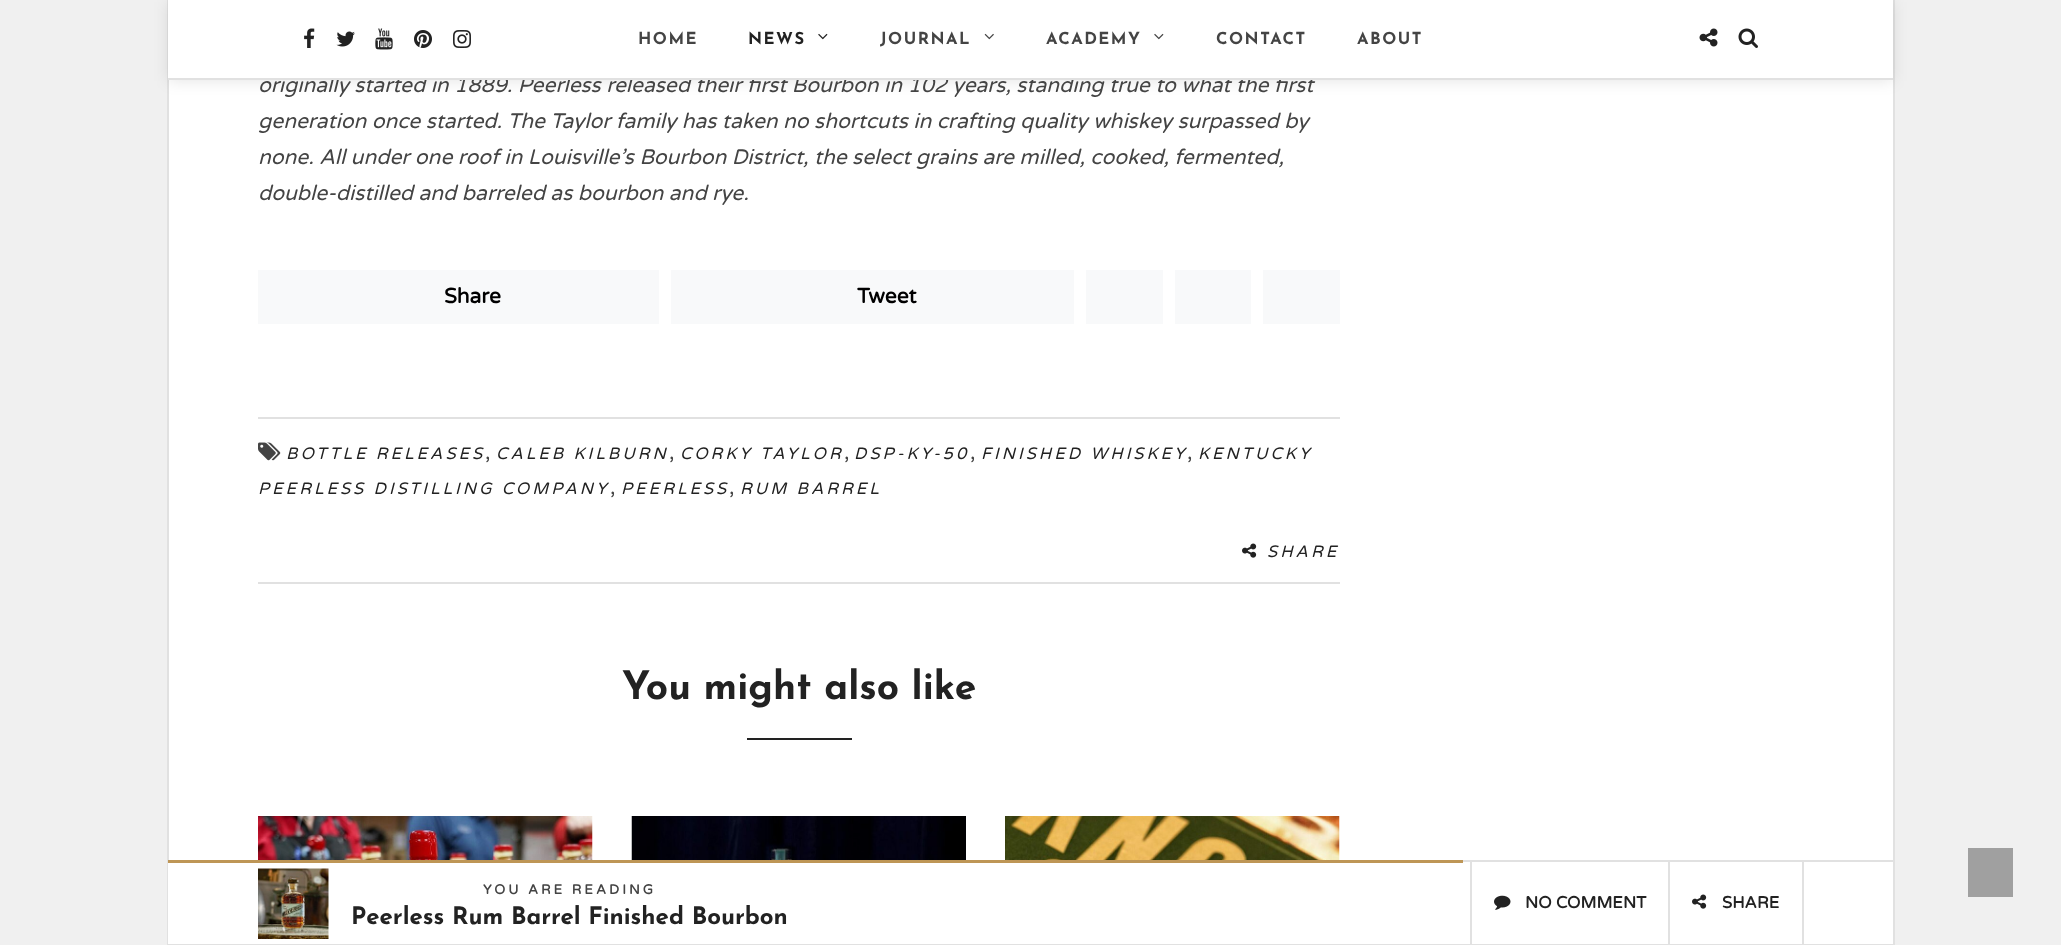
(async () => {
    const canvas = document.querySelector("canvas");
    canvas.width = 2061;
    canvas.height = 945;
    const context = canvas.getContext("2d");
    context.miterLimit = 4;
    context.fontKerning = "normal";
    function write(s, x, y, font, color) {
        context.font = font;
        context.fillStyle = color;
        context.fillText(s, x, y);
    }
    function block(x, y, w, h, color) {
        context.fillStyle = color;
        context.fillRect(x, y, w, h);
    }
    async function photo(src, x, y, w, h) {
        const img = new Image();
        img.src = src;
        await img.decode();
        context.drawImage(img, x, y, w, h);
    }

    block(0, 0, 2061, 945, "rgb(240, 240, 240)");
    block(169, 80, 1724, 780, "rgb(255, 255, 255)");
    context.strokeStyle = "rgb(225, 225, 225)";
    context.lineWidth = 2;
    context.strokeRect(168, -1, 1726, 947);
    context.fillStyle = "rgba(0, 0, 0, 0.1)";
    context.filter = "blur(7.5px)";
    context.beginPath();
    context.rect(168, 2, 1725, 79);
    context.fill();
    context.filter = "none";
    write("originally started in 1889. Peerless released their first Bourbon in 102 years, standing true to what the first", 258, 92, "italic 21px Varela Round", "rgb(68, 68, 68)");
    block(168, 0, 1725, 78, "rgb(255, 255, 255)");
    block(168, 78, 1725, 2, "rgb(225, 225, 225)");
    await photo("media/1.png", 304, 28, 11, 20);
    await photo("media/2.png", 336, 31, 19, 16);
    await photo("media/3.png", 375, 28, 18, 22);
    await photo("media/4.png", 414, 30, 18, 18);
    await photo("media/5.png", 453, 30, 18, 18);
    context.letterSpacing = "1.5px";
    write("HOME", 638, 44, "bold 16.5px Josefin Sans", "rgb(68, 68, 68)");
    write("NEWS", 748, 44, "bold 16.5px Josefin Sans", "rgb(34, 34, 34)");
    await photo("media/6.png", 818, 33, 10, 7);
    write("JOURNAL", 880, 44, "bold 16.5px Josefin Sans", "rgb(68, 68, 68)");
    await photo("media/7.png", 984, 33, 10, 7);
    write("ACADEMY", 1046, 44, "bold 16.5px Josefin Sans", "rgb(68, 68, 68)");
    await photo("media/8.png", 1154, 33, 10, 7);
    write("CONTACT", 1216, 44, "bold 16.5px Josefin Sans", "rgb(68, 68, 68)");
    write("ABOUT", 1357, 44, "bold 16.5px Josefin Sans", "rgb(68, 68, 68)");
    await photo("media/9.png", 1699, 28, 19, 19);
    await photo("media/10.png", 1738, 28, 20, 20);
    context.letterSpacing = "0px";
    write("generation once started. The Taylor family has taken no shortcuts in crafting quality whiskey surpassed by", 258, 128, "italic 21px Varela Round", "rgb(68, 68, 68)");
    write("none. All under one roof in Louisville’s Bourbon District, the select grains are milled, cooked, fermented,", 258, 164, "italic 21px Varela Round", "rgb(68, 68, 68)");
    write("double-distilled and barreled as bourbon and rye.", 258, 200, "italic 21px Varela Round", "rgb(68, 68, 68)");
    block(258, 270, 401, 54, "rgb(248, 249, 250)");
    write("Share", 444, 303, "bold 21px Varela Round", "rgb(0, 0, 0)");
    block(671, 270, 403, 54, "rgb(248, 249, 250)");
    write("Tweet", 857, 303, "bold 21px Varela Round", "rgb(0, 0, 0)");
    block(1086, 270, 77, 54, "rgb(248, 249, 250)");
    block(1175, 270, 76, 54, "rgb(248, 249, 250)");
    block(1263, 270, 77, 54, "rgb(248, 249, 250)");
    block(258, 417, 1082, 2, "rgb(225, 225, 225)");
    await photo("media/11.png", 258, 442, 23, 19);
    context.letterSpacing = "3px";
    write("BOTTLE RELEASES", 286, 459, "italic 16.5px Varela Round", "rgb(34, 34, 34)");
    context.letterSpacing = "0px";
    write(",", 485, 459, "21px Varela Round", "rgb(68, 68, 68)");
    context.letterSpacing = "3px";
    write("CALEB KILBURN", 496, 459, "italic 16.5px Varela Round", "rgb(34, 34, 34)");
    context.letterSpacing = "0px";
    write(",", 669, 459, "21px Varela Round", "rgb(68, 68, 68)");
    context.letterSpacing = "3px";
    write("CORKY TAYLOR", 680, 459, "italic 16.5px Varela Round", "rgb(34, 34, 34)");
    context.letterSpacing = "0px";
    write(",", 844, 459, "21px Varela Round", "rgb(68, 68, 68)");
    context.letterSpacing = "3px";
    write("DSP-KY-50", 854, 459, "italic 16.5px Varela Round", "rgb(34, 34, 34)");
    context.letterSpacing = "0px";
    write(",", 970, 459, "21px Varela Round", "rgb(68, 68, 68)");
    context.letterSpacing = "3px";
    write("FINISHED WHISKEY", 981, 459, "italic 16.5px Varela Round", "rgb(34, 34, 34)");
    context.letterSpacing = "0px";
    write(",", 1187, 459, "21px Varela Round", "rgb(68, 68, 68)");
    context.letterSpacing = "3px";
    write("KENTUCKY", 1198, 459, "italic 16.5px Varela Round", "rgb(34, 34, 34)");
    write("PEERLESS DISTILLING COMPANY", 258, 494, "italic 16.5px Varela Round", "rgb(34, 34, 34)");
    context.letterSpacing = "0px";
    write(",", 610, 494, "21px Varela Round", "rgb(68, 68, 68)");
    context.letterSpacing = "3px";
    write("PEERLESS", 621, 494, "italic 16.5px Varela Round", "rgb(34, 34, 34)");
    context.letterSpacing = "0px";
    write(",", 729, 494, "21px Varela Round", "rgb(68, 68, 68)");
    context.letterSpacing = "3px";
    write("RUM BARREL", 740, 494, "italic 16.5px Varela Round", "rgb(34, 34, 34)");
    await photo("media/12.png", 1242, 543, 15, 15);
    write("SHARE", 1267, 557, "italic 16.5px Varela Round", "rgb(34, 34, 34)");
    block(258, 582, 1082, 2, "rgb(225, 225, 225)");
    context.letterSpacing = "0px";
    write("You might also like", 622, 699, "bold 39px Josefin Sans", "rgb(34, 34, 34)");
    block(747, 738, 105, 2, "rgb(34, 34, 34)");
    await photo("media/13.png", 258, 816, 335, 44);
    await photo("media/14.png", 631, 816, 335, 44);
    await photo("media/15.png", 1005, 816, 335, 44);
    block(168, 862, 1725, 82, "rgb(255, 255, 255)");
    block(1463, 860, 430, 2, "rgb(225, 225, 225)");
    block(168, 944, 1725, 1, "rgb(225, 225, 225)");
    block(168, 860, 1295, 3, "rgb(190, 150, 86)");
    await photo("media/16.png", 258, 868, 71, 71);
    context.letterSpacing = "3px";
    write("YOU ARE READING", 483, 894, "bold 13.5px Varela Round", "rgb(68, 68, 68)");
    context.letterSpacing = "0px";
    write("Peerless Rum Barrel Finished Bourbon", 351, 924, "bold 24px Josefin Sans", "rgb(34, 34, 34)");
    block(1668, 861, 2, 83, "rgb(225, 225, 225)");
    block(1470, 861, 2, 83, "rgb(225, 225, 225)");
    await photo("media/17.png", 1494, 895, 17, 15);
    write("NO COMMENT", 1525, 908, "bold 16.5px Varela Round", "rgb(34, 34, 34)");
    block(1802, 861, 2, 83, "rgb(225, 225, 225)");
    await photo("media/12.png", 1692, 894, 15, 15);
    write("SHARE", 1722, 908, "bold 16.5px Varela Round", "rgb(34, 34, 34)");
    block(1968, 848, 45, 49, "rgb(160, 160, 160)");
})();
